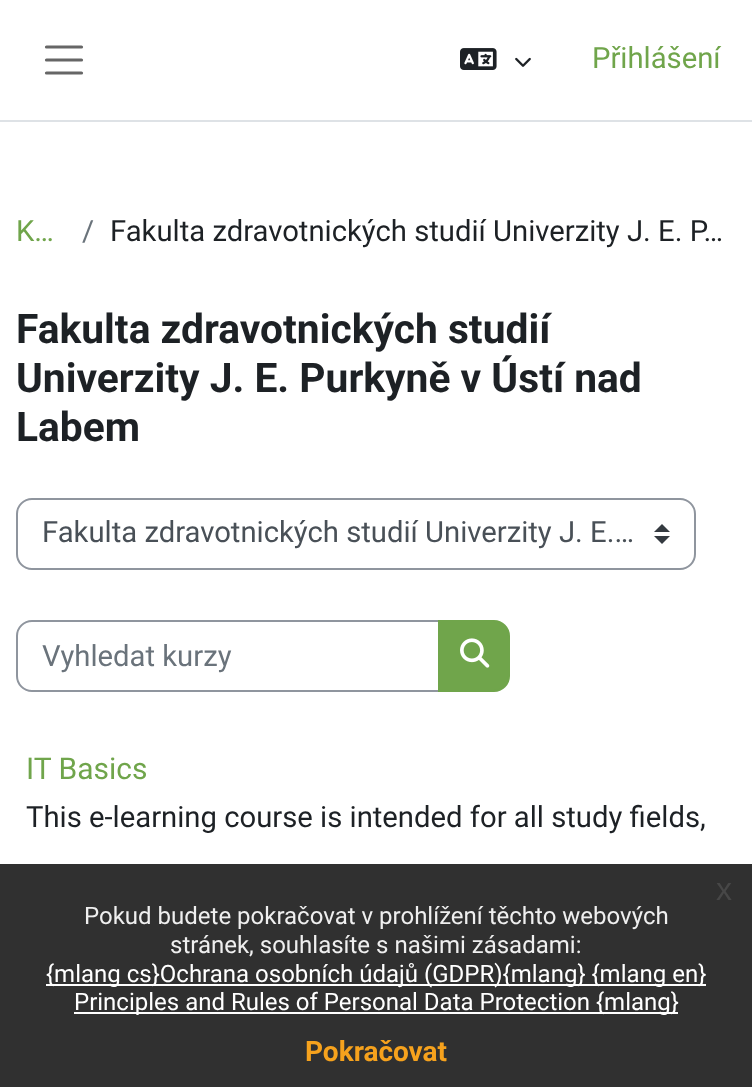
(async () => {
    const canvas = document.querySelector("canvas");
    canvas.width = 752;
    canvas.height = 1087;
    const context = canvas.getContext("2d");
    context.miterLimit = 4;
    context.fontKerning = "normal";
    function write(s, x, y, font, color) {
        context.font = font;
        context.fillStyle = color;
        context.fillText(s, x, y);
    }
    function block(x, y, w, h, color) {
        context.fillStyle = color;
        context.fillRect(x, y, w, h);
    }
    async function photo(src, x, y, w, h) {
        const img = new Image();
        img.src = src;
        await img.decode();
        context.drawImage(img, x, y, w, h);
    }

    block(0, 0, 752, 1087, "rgb(255, 255, 255)");
    block(0, 120, 752, 2, "rgb(222, 226, 230)");
    context.beginPath();
    context.moveTo(46.5, 47);
    context.lineTo(81.5, 47);
    context.moveTo(46.5, 60);
    context.lineTo(81.5, 60);
    context.moveTo(46.5, 73);
    context.lineTo(81.5, 73);
    context.strokeStyle = "rgb(102, 102, 102)";
    context.lineWidth = 3.2;
    context.lineCap = "round";
    context.stroke();
    await photo("media/1.png", 460, 48, 37, 22);
    await photo("media/2.png", 515, 57, 16, 10);
    write("Přihlášení", 592, 68, "29.25px Roboto", "rgb(112, 165, 75)");
    write("K…", 16, 241, "29.25px Roboto", "rgb(112, 165, 75)");
    write("/", 82, 241, "29.25px Roboto", "rgb(106, 115, 123)");
    write("Fakulta zdravotnických studií Univerzity J. E. P…", 110, 241, "29.25px Roboto", "rgb(29, 33, 37)");
    write("Fakulta zdravotnických studií", 16, 343, "bold 40.75px Roboto", "rgb(29, 33, 37)");
    write("Univerzity J. E. Purkyně v Ústí nad", 16, 392, "bold 40.75px Roboto", "rgb(29, 33, 37)");
    write("Labem", 16, 441, "bold 40.75px Roboto", "rgb(29, 33, 37)");
    context.fillStyle = "rgb(52, 58, 64)";
    context.beginPath();
    context.moveTo(662, 524);
    context.lineTo(654, 532);
    context.lineTo(670, 532);
    context.closePath();
    context.moveTo(662, 544);
    context.lineTo(654, 536);
    context.lineTo(670, 536);
    context.closePath();
    context.fill();
    context.beginPath();
    context.roundRect(17, 499, 678, 70, 15);
    context.strokeStyle = "rgb(143, 149, 158)";
    context.lineWidth = 2;
    context.stroke();
    write("Fakulta zdravotnických studií Univerzity J. E.…", 42, 542, "29.25px Roboto", "rgb(73, 80, 87)");
    context.beginPath();
    context.roundRect(17, 621, 422, 70, [15, 0, 0, 15]);
    context.stroke();
    write("Vyhledat kurzy", 42, 666, "29.25px Roboto", "rgb(106, 115, 123)");
    context.fillStyle = "rgb(112, 165, 75)";
    context.beginPath();
    context.roundRect(439, 621, 70, 70, [0, 15, 15, 0]);
    context.fill();
    context.strokeStyle = "rgb(112, 165, 75)";
    context.stroke();
    await photo("media/3.png", 460, 638, 30, 30);
    write("IT Basics", 26, 779, "30px Roboto", "rgb(112, 165, 75)");
    write("This e-learning course is intended for all study fields,", 26, 827, "29.25px Roboto", "rgb(29, 33, 37)");
    block(0, 864, 752, 223, "rgba(25, 25, 25, 0.9)");
    write("x", 716, 900, "32px Liberation Sans", "rgb(71, 71, 71)");
    write("Pokud budete pokračovat v prohlížení těchto webových", 84, 924, "24px Roboto", "rgb(239, 239, 239)");
    write("stránek, souhlasíte s našimi zásadami:", 170, 953, "24px Roboto", "rgb(239, 239, 239)");
    block(46, 984, 660, 2, "rgb(255, 255, 255)");
    write("{mlang cs}Ochrana osobních údajů (GDPR){mlang} {mlang en}", 46, 982, "24px Roboto", "rgb(255, 255, 255)");
    block(74, 1012, 604, 2, "rgb(255, 255, 255)");
    write("Principles and Rules of Personal Data Protection {mlang}", 74, 1010, "24px Roboto", "rgb(255, 255, 255)");
    write("Pokračovat", 305, 1061, "bold 28px Roboto", "rgb(246, 162, 29)");
})();
